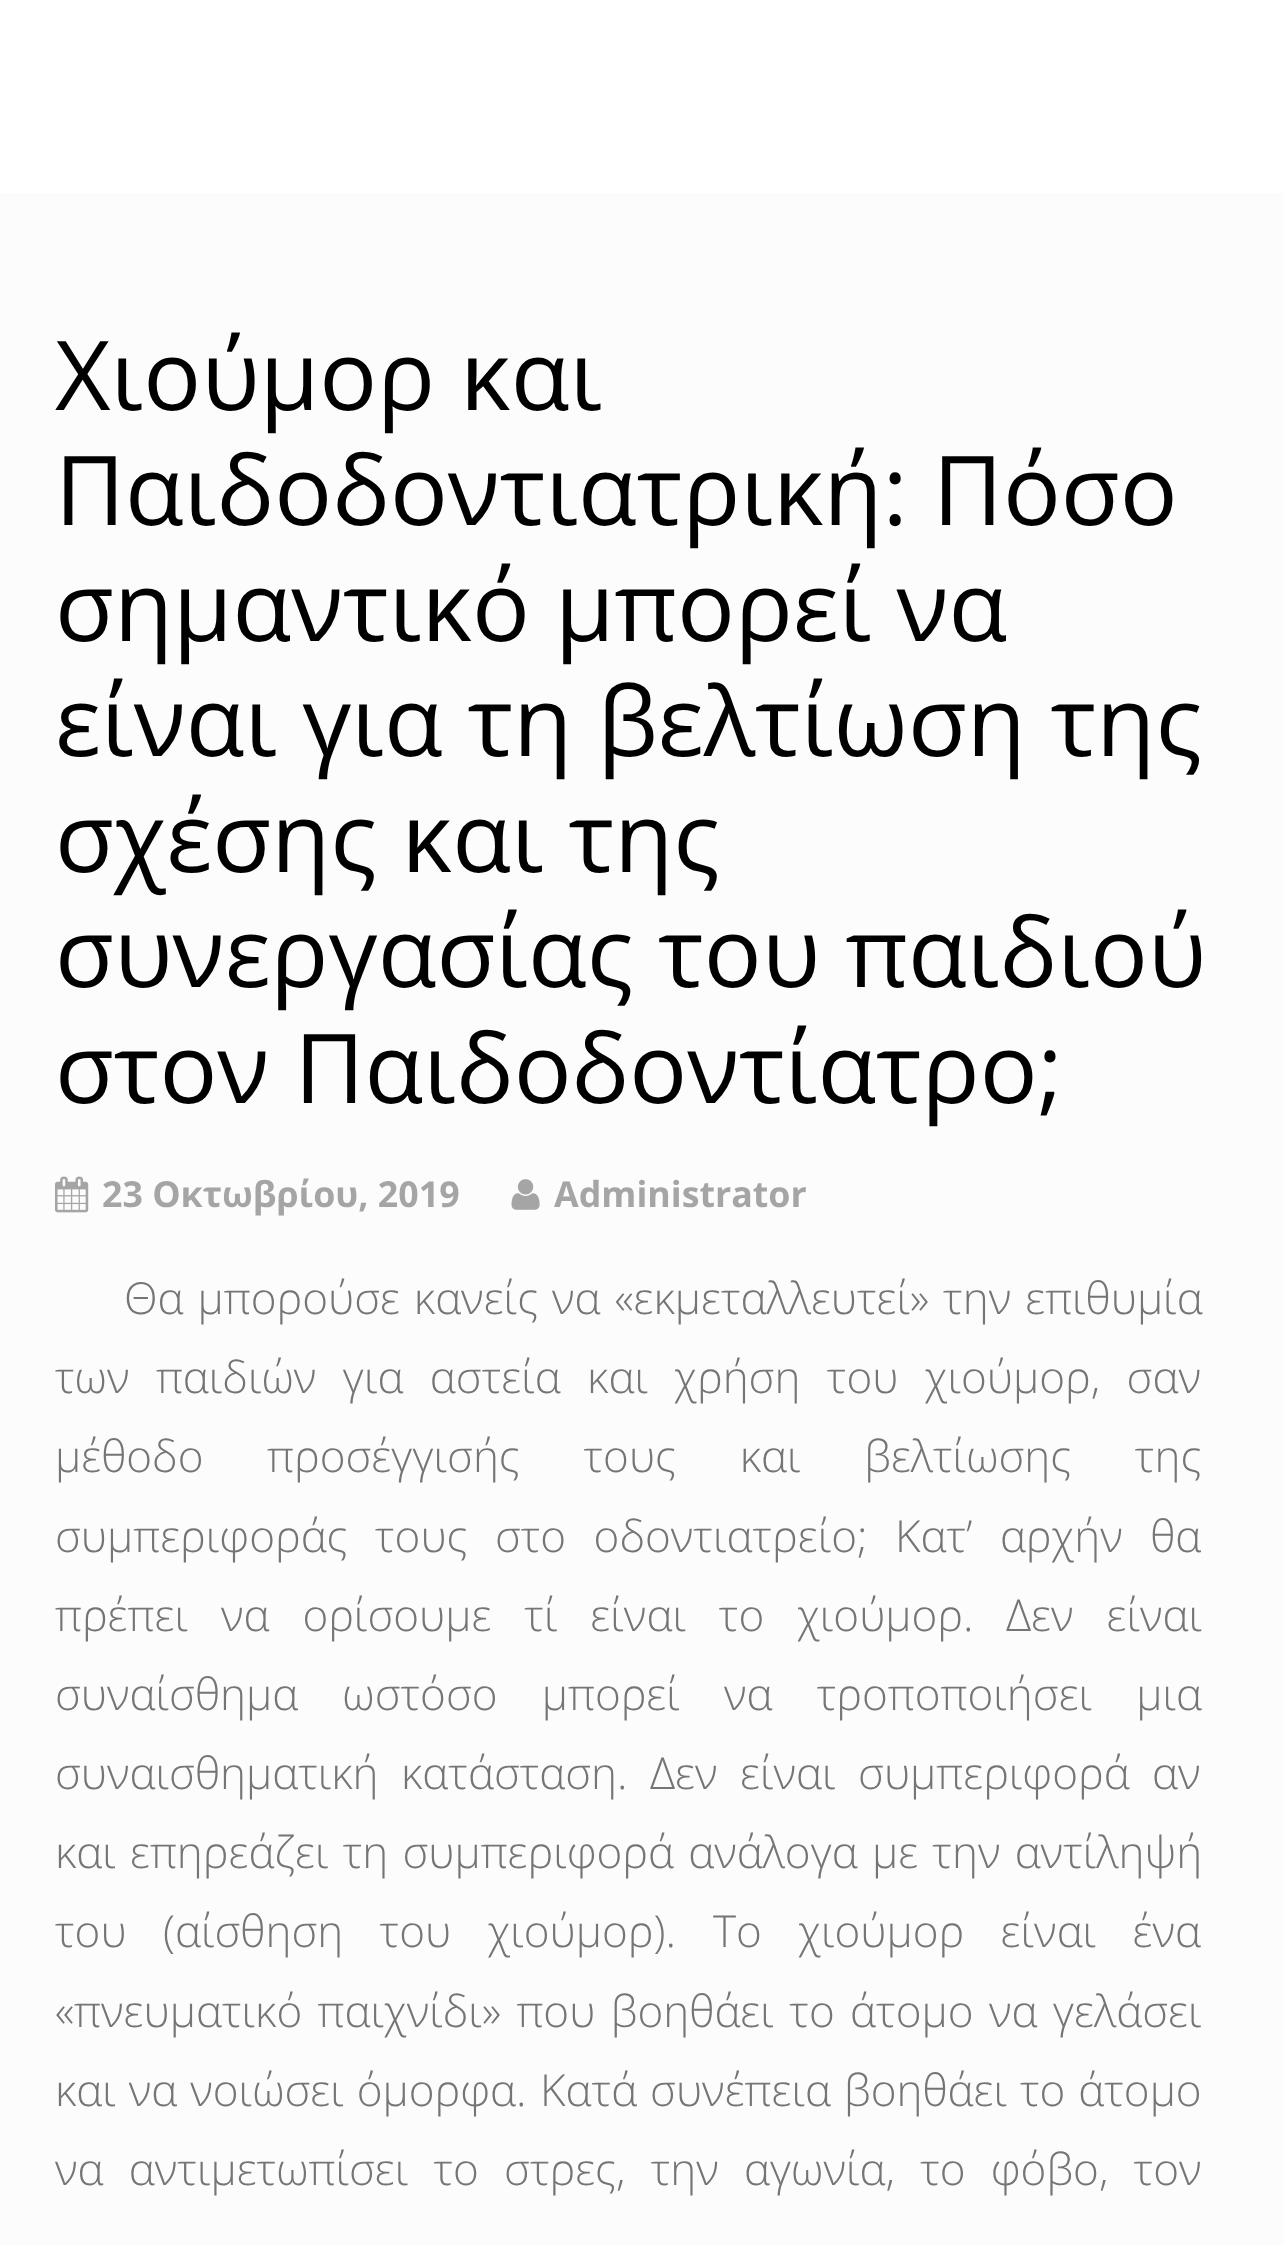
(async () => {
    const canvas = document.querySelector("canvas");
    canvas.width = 1284;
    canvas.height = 2245;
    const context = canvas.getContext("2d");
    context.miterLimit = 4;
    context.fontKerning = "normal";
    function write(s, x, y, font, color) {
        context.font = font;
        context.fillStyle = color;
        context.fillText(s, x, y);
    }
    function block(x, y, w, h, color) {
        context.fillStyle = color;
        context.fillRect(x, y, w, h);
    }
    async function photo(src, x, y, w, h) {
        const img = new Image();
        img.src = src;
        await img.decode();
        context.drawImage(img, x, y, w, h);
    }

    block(0, 0, 1284, 2245, "rgb(252, 252, 252)");
    block(0, 0, 1284, 193, "rgb(255, 255, 255)");
    write("Χιούμορ και", 55, 410, "96.25px Open Sans", "rgb(0, 0, 0)");
    write("Παιδοδοντιατρική: Πόσο", 55, 525, "96.25px Open Sans", "rgb(0, 0, 0)");
    write("σημαντικό μπορεί να", 55, 641, "96.25px Open Sans", "rgb(0, 0, 0)");
    write("είναι για τη βελτίωση της", 55, 756, "96.25px Open Sans", "rgb(0, 0, 0)");
    write("σχέσης και της", 55, 872, "96.25px Open Sans", "rgb(0, 0, 0)");
    write("συνεργασίας του παιδιού", 55, 987, "96.25px Open Sans", "rgb(0, 0, 0)");
    write("στον Παιδοδοντίατρο;", 55, 1103, "96.25px Open Sans", "rgb(0, 0, 0)");
    await photo("media/1.png", 55, 1176, 34, 37);
    write("23 Οκτωβρίου, 2019", 102, 1207, "bold 35.75px Open Sans", "rgb(165, 165, 165)");
    await photo("media/2.png", 511, 1179, 29, 31);
    write("Administrator", 554, 1207, "bold 35.75px Open Sans", "rgb(165, 165, 165)");
    context.wordSpacing = "2.5px";
    write("Θα μπορούσε κανείς να «εκμεταλλευτεί» την επιθυμία", 124, 1314, "300 44px Open Sans", "rgb(117, 117, 117)");
    context.wordSpacing = "15px";
    write("των παιδιών για αστεία και χρήση του χιούμορ, σαν", 55, 1393, "300 44px Open Sans", "rgb(117, 117, 117)");
    context.wordSpacing = "52.25px";
    write("μέθοδο προσέγγισής τους και βελτίωσης της", 55, 1472, "300 44px Open Sans", "rgb(117, 117, 117)");
    context.wordSpacing = "16px";
    write("συμπεριφοράς τους στο οδοντιατρείο; Κατ’ αρχήν θα", 55, 1552, "300 44px Open Sans", "rgb(117, 117, 117)");
    context.wordSpacing = "21.5px";
    write("πρέπει να ορίσουμε τί είναι το χιούμορ.", 55, 1631, "300 44px Open Sans", "rgb(117, 117, 117)");
    write("Δεν είναι", 1006, 1631, "300 44px Open Sans", "rgb(117, 117, 117)");
    context.wordSpacing = "32.75px";
    write("συναίσθημα ωστόσο μπορεί να τροποποιήσει μια", 55, 1710, "300 44px Open Sans", "rgb(117, 117, 117)");
    context.wordSpacing = "11px";
    write("συναισθηματική κατάσταση.", 55, 1789, "300 44px Open Sans", "rgb(117, 117, 117)");
    write("Δεν είναι συμπεριφορά αν", 650, 1789, "300 44px Open Sans", "rgb(117, 117, 117)");
    context.wordSpacing = "2.75px";
    write("και επηρεάζει τη συμπεριφορά ανάλογα με την αντίληψή", 55, 1868, "300 44px Open Sans", "rgb(117, 117, 117)");
    context.wordSpacing = "25px";
    write("του (αίσθηση του χιούμορ).", 55, 1947, "300 44px Open Sans", "rgb(117, 117, 117)");
    write("Το χιούμορ είναι ένα", 713, 1947, "300 44px Open Sans", "rgb(117, 117, 117)");
    context.wordSpacing = "4px";
    write("«πνευματικό παιχνίδι» που βοηθάει το άτομο να γελάσει", 55, 2027, "300 44px Open Sans", "rgb(117, 117, 117)");
    context.wordSpacing = "1.5px";
    write("και να νοιώσει όμορφα.", 55, 2106, "300 44px Open Sans", "rgb(117, 117, 117)");
    write("Κατά συνέπεια βοηθάει το άτομο", 540, 2106, "300 44px Open Sans", "rgb(117, 117, 117)");
    context.wordSpacing = "13.75px";
    write("να αντιμετωπίσει το στρες, την αγωνία, το φόβο, τον", 55, 2185, "300 44px Open Sans", "rgb(117, 117, 117)");
})();
